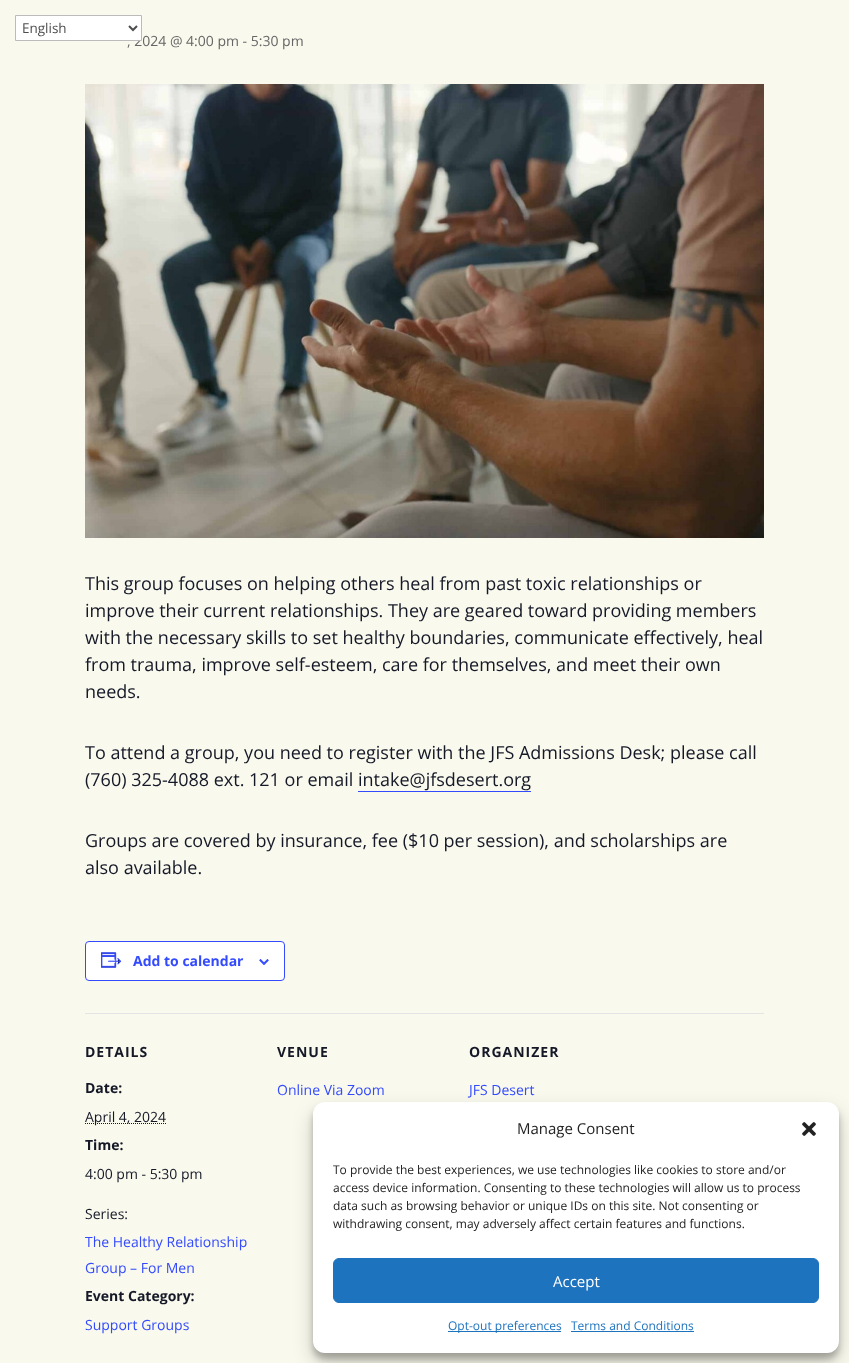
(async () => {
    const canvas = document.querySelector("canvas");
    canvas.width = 849;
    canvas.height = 1363;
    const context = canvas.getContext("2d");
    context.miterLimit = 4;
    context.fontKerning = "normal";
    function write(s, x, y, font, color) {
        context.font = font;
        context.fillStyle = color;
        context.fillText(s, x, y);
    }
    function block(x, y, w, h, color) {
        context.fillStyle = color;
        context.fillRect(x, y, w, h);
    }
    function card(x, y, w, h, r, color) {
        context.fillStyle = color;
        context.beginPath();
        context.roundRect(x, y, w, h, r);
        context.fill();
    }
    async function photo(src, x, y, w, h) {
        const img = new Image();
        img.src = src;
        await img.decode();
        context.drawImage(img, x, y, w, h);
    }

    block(0, 0, 849, 1363, "rgb(249, 249, 237)");
    write(", 2024 @ 4:00 pm - 5:30 pm", 127, 46, "14px Open Sans", "rgb(102, 102, 102)");
    context.fillStyle = "rgb(255, 255, 255)";
    context.beginPath();
    context.rect(15.5, 15.5, 126, 25);
    context.fill();
    context.strokeStyle = "rgb(187, 187, 187)";
    context.stroke();
    context.beginPath();
    context.moveTo(129, 26);
    context.lineTo(133, 30);
    context.lineTo(137, 26);
    context.strokeStyle = "rgb(78, 78, 78)";
    context.lineWidth = 2;
    context.stroke();
    write("English", 22, 33, "13.5px Open Sans", "rgb(78, 78, 78)");
    await photo("media/1.png", 85, 84, 679, 454);
    write("This group focuses on helping others heal from past toxic relationships or", 85, 590, "18px Open Sans", "rgb(20, 24, 39)");
    write("improve their current relationships. They are geared toward providing members", 85, 617, "18px Open Sans", "rgb(20, 24, 39)");
    write("with the necessary skills to set healthy boundaries, communicate effectively, heal", 85, 644, "18px Open Sans", "rgb(20, 24, 39)");
    write("from trauma, improve self-esteem, care for themselves, and meet their own", 85, 671, "18px Open Sans", "rgb(20, 24, 39)");
    write("needs.", 85, 698, "18px Open Sans", "rgb(20, 24, 39)");
    write("To attend a group, you need to register with the JFS Admissions Desk; please call", 85, 759, "18px Open Sans", "rgb(20, 24, 39)");
    write("(760) 325-4088 ext. 121 or email intake@jfsdesert.org", 85, 786, "18px Open Sans", "rgb(20, 24, 39)");
    block(358, 791, 173, 1, "rgb(51, 74, 255)");
    write("Groups are covered by insurance, fee ($10 per session), and scholarships are", 85, 847, "18px Open Sans", "rgb(20, 24, 39)");
    write("also available.", 85, 874, "18px Open Sans", "rgb(20, 24, 39)");
    context.fillStyle = "rgb(255, 255, 255)";
    context.beginPath();
    context.roundRect(85.5, 941.5, 199, 39, 3.5);
    context.fill();
    context.strokeStyle = "rgb(51, 74, 255)";
    context.lineWidth = 1;
    context.stroke();
    await photo("media/2.png", 101, 952, 21, 16);
    write("Add to calendar", 133, 966, "bold 14px Open Sans", "rgb(51, 74, 255)");
    await photo("media/3.png", 259, 959, 10, 6);
    block(85, 1013, 679, 1, "rgb(228, 228, 228)");
    context.letterSpacing = "1px";
    write("DETAILS", 85, 1057, "bold 14px Open Sans", "rgb(20, 24, 39)");
    context.letterSpacing = "0px";
    write("Date:", 85, 1093, "bold 14px Open Sans", "rgb(20, 24, 39)");
    context.beginPath();
    context.moveTo(85, 1123.5);
    context.lineTo(166, 1123.5);
    context.strokeStyle = "rgb(20, 24, 39)";
    context.setLineDash([1, 1]);
    context.stroke();
    write("April 4, 2024", 85, 1122, "14px Open Sans", "rgb(20, 24, 39)");
    write("Time:", 85, 1150, "bold 14px Open Sans", "rgb(20, 24, 39)");
    write("4:00 pm - 5:30 pm", 85, 1179, "14px Open Sans", "rgb(20, 24, 39)");
    write("Series:", 85, 1219, "14px Open Sans", "rgb(20, 24, 39)");
    write("The Healthy Relationship", 85, 1247, "14px Open Sans", "rgb(51, 74, 255)");
    write("Group – For Men", 85, 1273, "14px Open Sans", "rgb(51, 74, 255)");
    write("Event Category:", 85, 1301, "bold 14px Open Sans", "rgb(20, 24, 39)");
    write("Support Groups", 85, 1330, "14px Open Sans", "rgb(51, 74, 255)");
    context.letterSpacing = "1px";
    write("VENUE", 277, 1057, "bold 14px Open Sans", "rgb(20, 24, 39)");
    context.letterSpacing = "0px";
    write("Online Via Zoom", 277, 1095, "14px Open Sans", "rgb(51, 74, 255)");
    context.letterSpacing = "1px";
    write("ORGANIZER", 469, 1057, "bold 14px Open Sans", "rgb(20, 24, 39)");
    context.letterSpacing = "0px";
    write("JFS Desert", 469, 1095, "14px Open Sans", "rgb(51, 74, 255)");
    context.fillStyle = "rgba(0, 0, 0, 0.23)";
    context.filter = "blur(3px)";
    context.beginPath();
    context.roundRect(313, 1108, 526, 251, 12);
    context.fill();
    context.filter = "none";
    context.fillStyle = "rgba(0, 0, 0, 0.19)";
    context.filter = "blur(10px)";
    context.beginPath();
    context.roundRect(313, 1112, 526, 251, 12);
    context.fill();
    context.filter = "none";
    card(313, 1102, 526, 251, 12, "rgb(255, 255, 255)");
    write("Manage Consent", 517, 1134, "15px Open Sans", "rgb(34, 34, 34)");
    await photo("media/4.png", 802, 1122, 14, 14);
    write("To provide the best experiences, we use technologies like cookies to store and/or", 333, 1174, "12px Open Sans", "rgb(34, 34, 34)");
    write("access device information. Consenting to these technologies will allow us to process", 333, 1192, "12px Open Sans", "rgb(34, 34, 34)");
    write("data such as browsing behavior or unique IDs on this site. Not consenting or", 333, 1210, "12px Open Sans", "rgb(34, 34, 34)");
    write("withdrawing consent, may adversely affect certain features and functions.", 333, 1228, "12px Open Sans", "rgb(34, 34, 34)");
    context.fillStyle = "rgb(30, 115, 190)";
    context.beginPath();
    context.roundRect(333.5, 1258.5, 485, 44, 5.5);
    context.fill();
    context.strokeStyle = "rgb(30, 115, 190)";
    context.setLineDash([]);
    context.stroke();
    write("Accept", 553, 1287, "15px Open Sans", "rgb(255, 255, 255)");
    block(448, 1331, 113, 1, "rgb(30, 115, 190)");
    write("Opt-out preferences", 448, 1330, "12px Open Sans", "rgb(30, 115, 190)");
    write("Terms and Conditions", 571, 1330, "12px Open Sans", "rgb(30, 115, 190)");
    block(571, 1331, 123, 1, "rgb(30, 115, 190)");
})();
